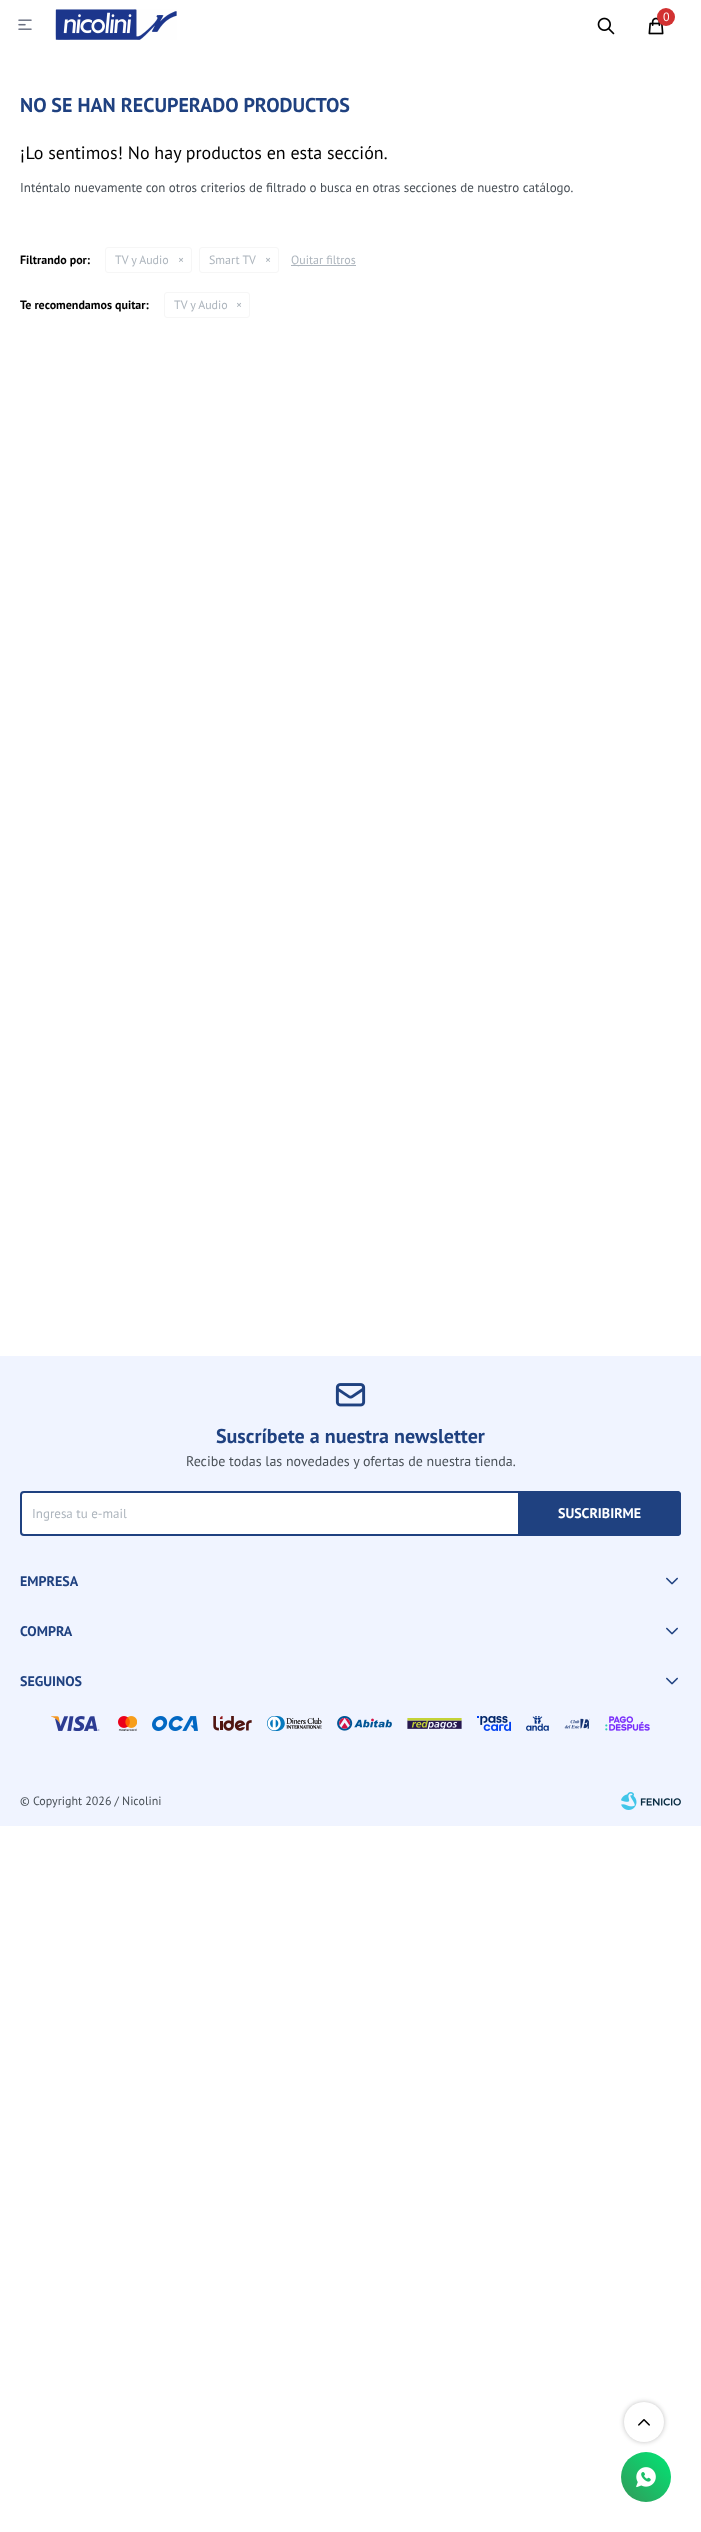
(async () => {
    const canvas = document.querySelector("canvas");
    canvas.width = 701;
    canvas.height = 2532;
    const context = canvas.getContext("2d");
    context.miterLimit = 4;
    context.fontKerning = "normal";
    function write(s, x, y, font, color) {
        context.font = font;
        context.fillStyle = color;
        context.fillText(s, x, y);
    }
    function block(x, y, w, h, color) {
        context.fillStyle = color;
        context.fillRect(x, y, w, h);
    }
    async function photo(src, x, y, w, h) {
        const img = new Image();
        img.src = src;
        await img.decode();
        context.drawImage(img, x, y, w, h);
    }
    let gradient;

    block(0, 0, 701, 2532, "rgb(255, 255, 255)");
    await photo("media/1.png", 18, 19, 14, 11);
    await photo("media/2.png", 55, 9, 122, 31);
    await photo("media/3.png", 597, 17, 18, 18);
    await photo("media/4.png", 648, 17, 16, 18);
    context.fillStyle = "rgb(210, 50, 50)";
    context.beginPath();
    context.arc(666, 17, 9, 0, Math.PI * 2);
    context.fill();
    write("0", 663, 21, "12px PT Sans", "rgb(255, 255, 255)");
    write("NO SE HAN RECUPERADO PRODUCTOS", 20, 112, "bold 20px PT Sans", "rgb(31, 65, 128)");
    write("¡Lo sentimos! No hay productos en esta sección.", 20, 159, "18px PT Sans", "rgb(0, 0, 0)");
    write("Inténtalo nuevamente con otros criterios de filtrado o busca en otras secciones de nuestro catálogo.", 20, 192, "13px PT Sans", "rgb(73, 80, 87)");
    write("Filtrando por:", 20, 264, "bold 12px PT Sans", "rgb(0, 0, 0)");
    context.beginPath();
    context.roundRect(105.5, 247.5, 86, 25, 2.5);
    context.strokeStyle = "rgb(246, 246, 246)";
    context.stroke();
    write("TV y Audio", 115, 264, "12px PT Sans", "rgb(173, 181, 189)");
    write("×", 178, 264, "12px PT Sans", "rgb(173, 181, 189)");
    context.beginPath();
    context.roundRect(199.5, 247.5, 79, 25, 2.5);
    context.stroke();
    write("Smart TV", 209, 264, "12px PT Sans", "rgb(173, 181, 189)");
    write("×", 265, 264, "12px PT Sans", "rgb(173, 181, 189)");
    block(291, 265, 65, 1, "rgb(173, 181, 189)");
    write("Quitar filtros", 291, 264, "12px PT Sans", "rgb(173, 181, 189)");
    write("Te recomendamos quitar:", 20, 309, "bold 12px PT Sans", "rgb(0, 0, 0)");
    context.beginPath();
    context.roundRect(164.5, 292.5, 85, 25, 2.5);
    context.stroke();
    write("TV y Audio", 174, 309, "12px PT Sans", "rgb(173, 181, 189)");
    write("×", 236, 309, "12px PT Sans", "rgb(173, 181, 189)");
    context.fillStyle = "rgba(0, 0, 0, 0.25)";
    context.filter = "blur(2.5px)";
    context.beginPath();
    context.roundRect(624, 2402, 40, 40, 20);
    context.fill();
    context.filter = "none";
    context.fillStyle = "rgb(255, 255, 255)";
    context.beginPath();
    context.arc(644, 2422, 20, 0, Math.PI * 2);
    context.fill();
    await photo("media/5.png", 638, 2419, 12, 7);
    block(0, 1356, 701, 470, "rgb(240, 244, 255)");
    await photo("media/6.png", 335, 1383, 31, 24);
    write("Suscríbete a nuestra newsletter", 216, 1443, "bold 20px PT Sans", "rgb(31, 65, 128)");
    write("Recibe todas las novedades y ofertas de nuestra tienda.", 186, 1466, "14px PT Sans", "rgb(73, 80, 87)");
    context.fillStyle = "rgb(255, 255, 255)";
    context.beginPath();
    context.roundRect(21, 1492, 659, 43, 3);
    context.fill();
    context.strokeStyle = "rgb(31, 65, 128)";
    context.lineWidth = 2;
    context.stroke();
    write("Ingresa tu e-mail", 32, 1518, "13px PT Sans", "rgb(173, 181, 189)");
    context.fillStyle = "rgb(31, 65, 128)";
    context.beginPath();
    context.roundRect(518, 1491, 163, 45, [0, 4, 4, 0]);
    context.fill();
    write("SUSCRIBIRME", 558, 1518, "bold 14px PT Sans", "rgb(255, 255, 255)");
    write("EMPRESA", 20, 1586, "bold 14px PT Sans", "rgb(31, 65, 128)");
    await photo("media/7.png", 666, 1577, 12, 8);
    write("COMPRA", 20, 1636, "bold 14px PT Sans", "rgb(31, 65, 128)");
    await photo("media/7.png", 666, 1627, 12, 8);
    write("SEGUINOS", 20, 1686, "bold 14px PT Sans", "rgb(31, 65, 128)");
    await photo("media/7.png", 666, 1677, 12, 8);
    await photo("media/8.png", 51, 1716, 49, 15);
    await photo("media/9.png", 118, 1716, 19, 15);
    await photo("media/10.png", 152, 1716, 46, 15);
    await photo("media/11.png", 213, 1716, 39, 15);
    await photo("media/12.png", 267, 1716, 55, 15);
    await photo("media/13.png", 337, 1716, 55, 15);
    await photo("media/14.png", 407, 1718, 55, 11);
    await photo("media/15.png", 477, 1716, 34, 15);
    await photo("media/16.png", 526, 1716, 23, 15);
    await photo("media/17.png", 564, 1718, 26, 11);
    await photo("media/18.png", 605, 1716, 45, 15);
    write("© Copyright 2026 / Nicolini", 20, 1805, "12px PT Sans", "rgb(73, 80, 87)");
    await photo("media/19.png", 621, 1792, 60, 18);
    gradient = context.createLinearGradient(621, 2502, 671, 2452);
    gradient.addColorStop(0, "rgb(51, 153, 90)");
    gradient.addColorStop(1, "rgb(1, 230, 117)");
    context.fillStyle = gradient;
    context.beginPath();
    context.arc(646, 2477, 25, 0, Math.PI * 2);
    context.fill();
    await photo("media/20.png", 636, 2467, 20, 21);
})();
